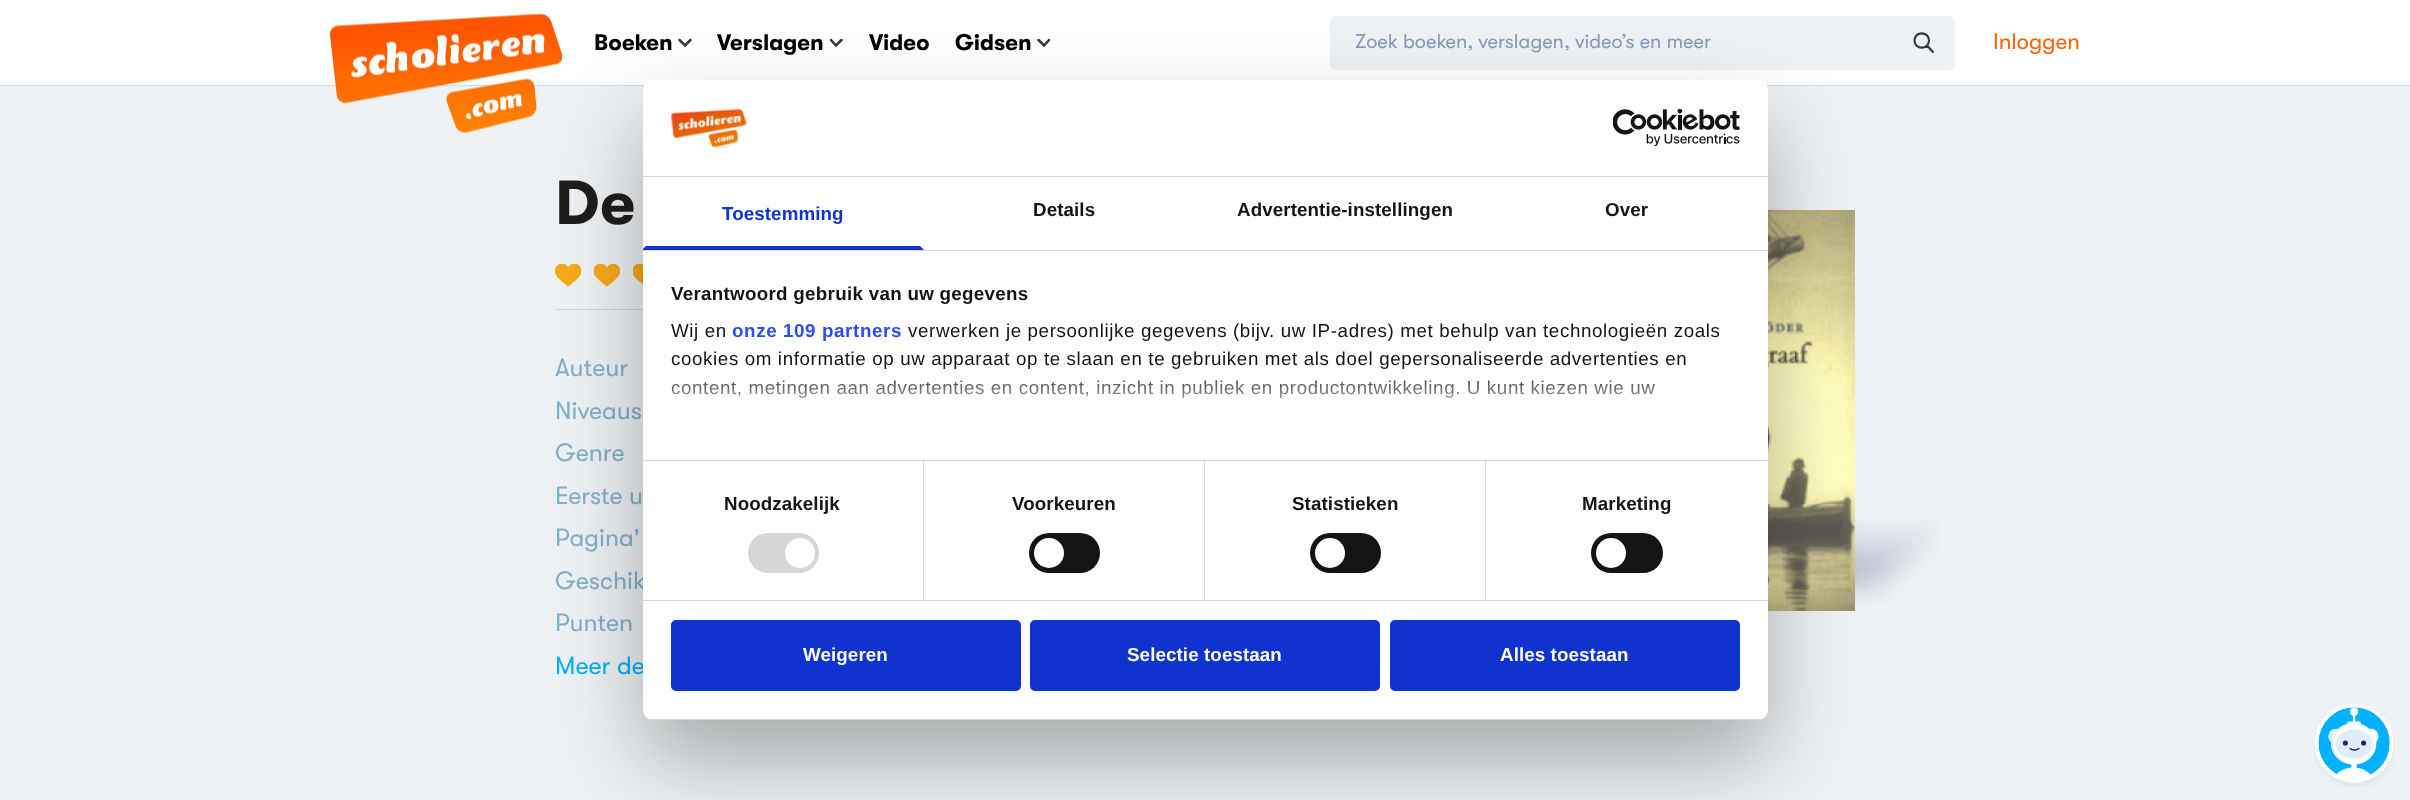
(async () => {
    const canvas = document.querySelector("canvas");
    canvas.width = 2410;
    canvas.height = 800;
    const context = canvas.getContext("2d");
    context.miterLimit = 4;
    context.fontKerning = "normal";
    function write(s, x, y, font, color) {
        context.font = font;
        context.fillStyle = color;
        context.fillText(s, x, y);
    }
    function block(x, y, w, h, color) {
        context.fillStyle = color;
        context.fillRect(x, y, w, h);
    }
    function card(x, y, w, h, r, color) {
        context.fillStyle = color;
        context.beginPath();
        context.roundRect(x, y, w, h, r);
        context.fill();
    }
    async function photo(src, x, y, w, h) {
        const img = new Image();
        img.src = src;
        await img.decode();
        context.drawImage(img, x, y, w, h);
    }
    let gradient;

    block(0, 0, 2410, 800, "rgb(255, 255, 255)");
    block(0, 85, 2410, 1, "rgb(204, 220, 229)");
    block(0, 86, 2410, 714, "rgb(238, 242, 244)");
    await photo("media/1.png", 330, 13, 233, 120);
    write("Boeken", 594, 50, "bold 22.5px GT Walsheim", "rgb(0, 0, 0)");
    context.beginPath();
    context.moveTo(690.5, 40);
    context.lineTo(685, 45.5);
    context.lineTo(679.5, 40);
    context.strokeStyle = "rgb(57, 56, 55)";
    context.lineWidth = 2.5;
    context.lineCap = "round";
    context.stroke();
    write("Verslagen", 717, 50, "bold 22.5px GT Walsheim", "rgb(0, 0, 0)");
    context.save();
    context.beginPath();
    context.rect(829, 39, 15, 9);
    context.clip();
    context.beginPath();
    context.moveTo(841.5, 40);
    context.lineTo(836, 45.5);
    context.lineTo(831, 40);
    context.stroke();
    context.restore();
    write("Video", 869, 50, "bold 22.5px GT Walsheim", "rgb(0, 0, 0)");
    write("Gidsen", 955, 50, "bold 22.5px GT Walsheim", "rgb(0, 0, 0)");
    context.save();
    context.beginPath();
    context.rect(1036, 39, 15, 9);
    context.clip();
    context.beginPath();
    context.moveTo(1049, 40);
    context.lineTo(1044, 45.5);
    context.lineTo(1038.5, 40);
    context.stroke();
    context.restore();
    card(1330, 16, 625, 54, 6, "rgb(238, 242, 245)");
    write("Zoek boeken, verslagen, video’s en meer", 1355, 48, "20px GT Walsheim", "rgb(133, 155, 184)");
    context.beginPath();
    context.moveTo(1933, 52);
    context.lineTo(1927, 45.5);
    context.moveTo(1929, 40.5);
    context.bezierCurveTo(1929, 50, 1914.5, 50, 1914.5, 40.5);
    context.bezierCurveTo(1914.5, 31, 1929, 31, 1929, 40.5);
    context.closePath();
    context.lineWidth = 2.1;
    context.lineJoin = "round";
    context.stroke();
    write("Inloggen", 1993, 49, "22.5px GT Walsheim", "rgb(255, 98, 0)");
    write("De", 555, 224, "bold 62px GT Walsheim", "rgb(31, 30, 29)");
    await photo("media/2.png", 555, 264, 26, 22);
    await photo("media/3.png", 594, 264, 26, 22);
    await photo("media/4.png", 633, 264, 10, 21);
    block(555, 309, 88, 1, "rgb(196, 215, 226)");
    write("Auteur", 555, 376, "25px GT Walsheim", "rgb(131, 177, 201)");
    write("Niveaus", 555, 419, "25px GT Walsheim", "rgb(131, 177, 201)");
    write("Genre", 555, 461, "25px GT Walsheim", "rgb(131, 177, 201)");
    write("Eerste u", 555, 504, "25px GT Walsheim", "rgb(131, 177, 201)");
    write("Pagina'", 555, 546, "25px GT Walsheim", "rgb(131, 177, 201)");
    write("Geschik", 555, 589, "25px GT Walsheim", "rgb(131, 177, 201)");
    write("Punten", 555, 631, "25px GT Walsheim", "rgb(131, 177, 201)");
    write("Meer de", 555, 674, "25px GT Walsheim", "rgb(0, 177, 255)");
    await photo("media/5.png", 1768, 210, 87, 401);
    await photo("media/6.png", 1855, 519, 84, 85);
    context.fillStyle = "rgba(0, 0, 0, 0.3)";
    context.filter = "blur(42.5px)";
    context.beginPath();
    context.roundRect(643, 120, 1125, 640, 10);
    context.fill();
    context.filter = "none";
    card(643, 80, 1125, 640, 10, "rgb(255, 255, 255)");
    block(643, 176, 1125, 1, "rgb(214, 214, 214)");
    await photo("media/7.png", 670, 108, 77, 40);
    await photo("media/8.png", 1613, 109, 127, 37);
    block(643, 250, 1125, 1, "rgb(214, 214, 214)");
    context.fillStyle = "rgb(16, 50, 207)";
    context.beginPath();
    context.moveTo(924, 250);
    context.lineTo(643, 250);
    context.lineTo(643, 249);
    context.lineTo(646, 246);
    context.lineTo(920, 246);
    context.closePath();
    context.fill();
    context.letterSpacing = "0.1px";
    write("Toestemming", 722, 220, "bold 18.75px Liberation Sans", "rgb(16, 50, 207)");
    write("Details", 1033, 216, "bold 18.75px Liberation Sans", "rgb(20, 20, 20)");
    write("Advertentie-instellingen", 1237, 216, "bold 18.75px Liberation Sans", "rgb(20, 20, 20)");
    write("Over", 1605, 216, "bold 18.75px Liberation Sans", "rgb(20, 20, 20)");
    block(643, 460, 1125, 1, "rgb(214, 214, 214)");
    context.letterSpacing = "0.3px";
    write("Verantwoord gebruik van uw gegevens", 671, 300, "bold 18.75px Liberation Sans", "rgb(20, 20, 20)");
    context.letterSpacing = "0.62px";
    write("Wij en", 671, 337, "18.75px Liberation Sans", "rgb(20, 20, 20)");
    write("onze 109 partners", 732, 337, "bold 18.75px Liberation Sans", "rgb(42, 78, 239)");
    write("verwerken je persoonlijke gegevens (bijv. uw IP-adres) met behulp van technologieën zoals", 908, 337, "18.75px Liberation Sans", "rgb(20, 20, 20)");
    write("cookies om informatie op uw apparaat op te slaan en te gebruiken met als doel gepersonaliseerde advertenties en", 671, 365, "18.75px Liberation Sans", "rgb(20, 20, 20)");
    write("content, metingen aan advertenties en content, inzicht in publiek en productontwikkeling. U kunt kiezen wie uw", 671, 394, "18.75px Liberation Sans", "rgb(20, 20, 20)");
    gradient = context.createLinearGradient(1193, 460, 1193, 366);
    gradient.addColorStop(0, "rgb(255, 255, 255)");
    gradient.addColorStop(0.5, "rgba(255, 255, 255, 0.8)");
    gradient.addColorStop(1, "rgba(255, 255, 255, 0)");
    context.fillStyle = gradient;
    context.fillRect(671, 367, 984, 31);
    block(643, 600, 1125, 1, "rgb(214, 214, 214)");
    block(923, 461, 1, 139, "rgb(214, 214, 214)");
    context.letterSpacing = "0.1px";
    write("Noodzakelijk", 724, 510, "bold 18.75px Liberation Sans", "rgb(20, 20, 20)");
    card(748, 533, 71, 40, 20, "rgb(214, 214, 214)");
    context.fillStyle = "rgb(255, 255, 255)";
    context.beginPath();
    context.arc(800, 553, 15, 0, Math.PI * 2);
    context.fill();
    block(1204, 461, 1, 139, "rgb(214, 214, 214)");
    write("Voorkeuren", 1012, 510, "bold 18.75px Liberation Sans", "rgb(20, 20, 20)");
    card(1029, 533, 71, 40, 20, "rgb(20, 20, 20)");
    context.fillStyle = "rgb(255, 255, 255)";
    context.beginPath();
    context.arc(1049, 553, 15, 0, Math.PI * 2);
    context.fill();
    block(1485, 461, 1, 139, "rgb(214, 214, 214)");
    write("Statistieken", 1292, 510, "bold 18.75px Liberation Sans", "rgb(20, 20, 20)");
    card(1310, 533, 71, 40, 20, "rgb(20, 20, 20)");
    context.fillStyle = "rgb(255, 255, 255)";
    context.beginPath();
    context.arc(1330, 553, 15, 0, Math.PI * 2);
    context.fill();
    write("Marketing", 1582, 510, "bold 18.75px Liberation Sans", "rgb(20, 20, 20)");
    card(1591, 533, 72, 40, 20, "rgb(20, 20, 20)");
    context.fillStyle = "rgb(255, 255, 255)";
    context.beginPath();
    context.arc(1611, 553, 15, 0, Math.PI * 2);
    context.fill();
    context.save();
    context.beginPath();
    context.roundRect(643, 80, 1125, 640, 10);
    context.clip();
    block(643, 719, 1125, 1, "rgb(214, 214, 214)");
    context.restore();
    context.fillStyle = "rgb(16, 50, 207)";
    context.beginPath();
    context.roundRect(672.5, 621.5, 347, 68, 3.5);
    context.fill();
    context.strokeStyle = "rgb(16, 50, 207)";
    context.lineWidth = 3;
    context.lineJoin = "miter";
    context.stroke();
    write("Weigeren", 803, 661, "bold 18.75px Liberation Sans", "rgb(255, 255, 255)");
    context.fillStyle = "rgb(16, 50, 207)";
    context.beginPath();
    context.roundRect(1031.5, 621.5, 347, 68, 3.5);
    context.fill();
    context.stroke();
    write("Selectie toestaan", 1127, 661, "bold 18.75px Liberation Sans", "rgb(255, 255, 255)");
    context.fillStyle = "rgb(16, 50, 207)";
    context.beginPath();
    context.roundRect(1391.5, 621.5, 347, 68, 3.5);
    context.fill();
    context.stroke();
    write("Alles toestaan", 1500, 661, "bold 18.75px Liberation Sans", "rgb(255, 255, 255)");
    await photo("media/9.png", 2314, 703, 81, 84);
})();
